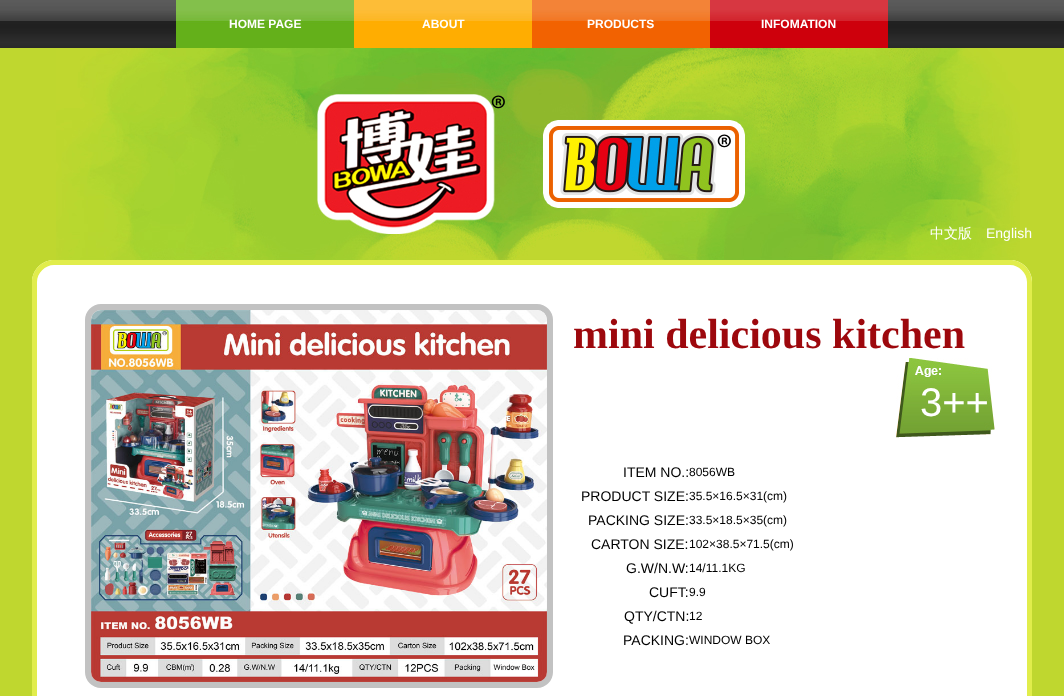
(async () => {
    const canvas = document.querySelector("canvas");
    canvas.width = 1064;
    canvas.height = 696;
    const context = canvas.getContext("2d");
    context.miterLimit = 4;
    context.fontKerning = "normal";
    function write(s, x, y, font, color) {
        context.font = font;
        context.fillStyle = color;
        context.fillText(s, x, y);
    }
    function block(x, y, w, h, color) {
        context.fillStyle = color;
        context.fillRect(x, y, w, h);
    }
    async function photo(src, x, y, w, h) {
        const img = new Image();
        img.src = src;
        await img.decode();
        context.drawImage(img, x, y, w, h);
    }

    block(0, 0, 1064, 696, "rgb(255, 255, 255)");
    await photo("media/1.png", 0, 0, 1064, 48);
    await photo("media/2.png", 176, 0, 178, 48);
    write("HOME PAGE", 229, 28, "bold 12px Liberation Sans", "rgb(255, 255, 255)");
    await photo("media/3.png", 354, 0, 178, 48);
    write("ABOUT", 422, 28, "bold 12px Liberation Sans", "rgb(255, 255, 255)");
    await photo("media/4.png", 532, 0, 178, 48);
    write("PRODUCTS", 587, 28, "bold 12px Liberation Sans", "rgb(255, 255, 255)");
    await photo("media/5.png", 710, 0, 178, 48);
    write("INFOMATION", 761, 28, "bold 12px Liberation Sans", "rgb(255, 255, 255)");
    block(0, 48, 1064, 648, "rgb(191, 215, 47)");
    await photo("media/6.png", 56, 48, 964, 212);
    write("中文版", 930, 238, "500 14px WenQuanYi Zen Hei", "rgb(255, 255, 255)");
    write("English", 986, 238, "14px Liberation Sans", "rgb(255, 255, 255)");
    context.beginPath();
    context.moveTo(54, 260);
    context.lineTo(1010, 260);
    context.bezierCurveTo(1022, 260, 1032, 270, 1032, 282);
    context.lineTo(1032, 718);
    context.lineTo(32, 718);
    context.lineTo(32, 282);
    context.bezierCurveTo(32, 270, 42, 260, 54, 260);
    context.closePath();
    context.fill();
    context.fillStyle = "rgb(225, 237, 76)";
    context.beginPath();
    context.moveTo(54, 260);
    context.lineTo(1010, 260);
    context.bezierCurveTo(1022, 260, 1032, 270, 1032, 282);
    context.lineTo(1032, 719);
    context.lineTo(32, 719);
    context.lineTo(32, 282);
    context.bezierCurveTo(32, 270, 42, 260, 54, 260);
    context.closePath();
    context.moveTo(54, 265);
    context.lineTo(1010, 265);
    context.bezierCurveTo(1019, 265, 1027, 273, 1027, 282);
    context.lineTo(1027, 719);
    context.lineTo(37, 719);
    context.lineTo(37, 282);
    context.bezierCurveTo(37, 273, 45, 265, 54, 265);
    context.closePath();
    context.fill("evenodd");
    context.beginPath();
    context.roundRect(88, 307, 462, 378, 13);
    context.strokeStyle = "rgb(194, 194, 194)";
    context.lineWidth = 6;
    context.stroke();
    await photo("media/7.png", 91, 310, 456, 372);
    write("mini delicious kitchen", 573, 348, "bold 42px Liberation Serif", "rgb(157, 8, 13)");
    await photo("media/8.png", 896, 358, 99, 80);
    write("3++", 920, 416, "40px Liberation Sans", "rgb(255, 255, 255)");
    write("ITEM NO.:", 623, 477, "14px Liberation Sans", "rgb(0, 0, 0)");
    write("8056WB", 689, 476, "12px Liberation Sans", "rgb(0, 0, 0)");
    write("PRODUCT SIZE:", 581, 501, "14px Liberation Sans", "rgb(0, 0, 0)");
    write("35.5×16.5×31(cm)", 689, 500, "12px Liberation Sans", "rgb(0, 0, 0)");
    write("PACKING SIZE:", 588, 525, "14px Liberation Sans", "rgb(0, 0, 0)");
    write("33.5×18.5×35(cm)", 689, 524, "12px Liberation Sans", "rgb(0, 0, 0)");
    write("CARTON SIZE:", 591, 549, "14px Liberation Sans", "rgb(0, 0, 0)");
    write("102×38.5×71.5(cm)", 689, 548, "12px Liberation Sans", "rgb(0, 0, 0)");
    write("G.W/N.W:", 626, 573, "14px Liberation Sans", "rgb(0, 0, 0)");
    write("14/11.1KG", 689, 572, "12px Liberation Sans", "rgb(0, 0, 0)");
    write("CUFT:", 649, 597, "14px Liberation Sans", "rgb(0, 0, 0)");
    write("9.9", 689, 596, "12px Liberation Sans", "rgb(0, 0, 0)");
    write("QTY/CTN:", 624, 621, "14px Liberation Sans", "rgb(0, 0, 0)");
    write("12", 689, 620, "12px Liberation Sans", "rgb(0, 0, 0)");
    write("PACKING:", 623, 645, "14px Liberation Sans", "rgb(0, 0, 0)");
    write("WINDOW BOX", 689, 644, "12px Liberation Sans", "rgb(0, 0, 0)");
})();
